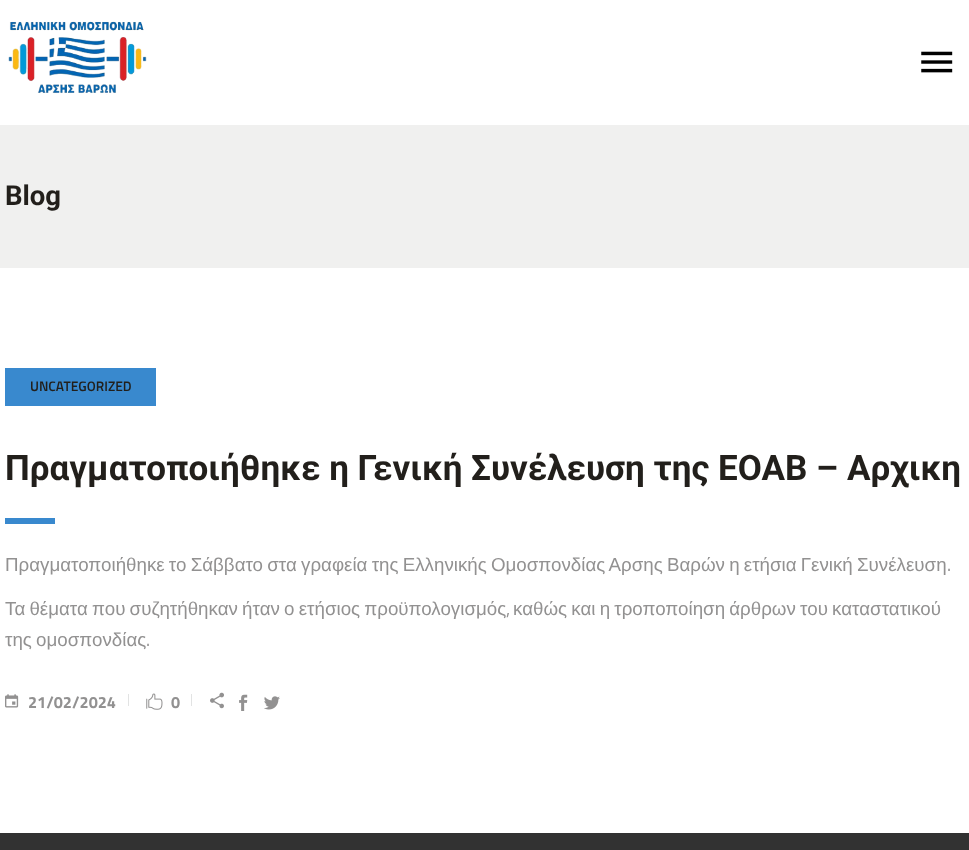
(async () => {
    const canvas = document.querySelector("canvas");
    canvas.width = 969;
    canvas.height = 850;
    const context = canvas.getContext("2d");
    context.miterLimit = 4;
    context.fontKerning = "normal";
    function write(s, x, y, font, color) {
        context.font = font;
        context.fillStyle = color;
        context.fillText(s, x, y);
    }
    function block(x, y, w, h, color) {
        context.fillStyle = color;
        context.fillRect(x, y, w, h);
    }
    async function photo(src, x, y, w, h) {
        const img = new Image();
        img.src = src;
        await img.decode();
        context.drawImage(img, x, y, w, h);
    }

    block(0, 0, 969, 850, "rgb(255, 255, 255)");
    await photo("media/1.png", 8, 21, 139, 74);
    await photo("media/2.png", 921, 51, 32, 22);
    block(0, 125, 969, 143, "rgb(240, 240, 239)");
    write("Blog", 5, 205, "bold 27.5px Roboto", "rgb(34, 31, 27)");
    block(5, 368, 151, 38, "rgb(57, 137, 206)");
    write("UNCATEGORIZED", 30, 391, "600 13.75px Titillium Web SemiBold", "rgb(34, 31, 27)");
    write("Πραγματοποιήθηκε η Γενική Συνέλευση της ΕΟΑΒ – Αρχικη", 5, 480, "bold 35px Roboto", "rgb(34, 31, 27)");
    block(5, 518, 50, 6, "rgb(57, 137, 206)");
    context.wordSpacing = "-1px";
    write("Πραγματοποιήθηκε το Σάββατο στα γραφεία της Ελληνικής Ομοσπονδίας Αρσης Βαρών η ετήσια Γενική Συνέλευση", 5, 571, "18.75px Liberation Sans", "rgb(146, 145, 145)");
    context.wordSpacing = "0px";
    write(".", 947, 571, "18.75px Titillium Web", "rgb(146, 145, 145)");
    context.wordSpacing = "-1px";
    write("Τα θέματα που συζητήθηκαν ήταν ο ετήσιος προϋπολογισμός", 5, 615, "18.75px Liberation Sans", "rgb(146, 145, 145)");
    context.wordSpacing = "0px";
    write(",", 506, 615, "18.75px Titillium Web", "rgb(146, 145, 145)");
    context.wordSpacing = "-1px";
    write("καθώς και η τροποποίηση άρθρων του καταστατικού", 513, 615, "18.75px Liberation Sans", "rgb(146, 145, 145)");
    write("της ομοσπονδίας", 5, 646, "18.75px Liberation Sans", "rgb(146, 145, 145)");
    context.wordSpacing = "0px";
    write(".", 146, 646, "18.75px Titillium Web", "rgb(146, 145, 145)");
    await photo("media/3.png", 5, 694, 14, 14);
    write("21/02/2024", 28, 708, "bold 16.25px Titillium Web", "rgb(146, 145, 145)");
    block(128, 694, 1, 12, "rgb(226, 227, 227)");
    await photo("media/4.png", 146, 693, 17, 17);
    write("0", 171, 708, "bold 16.25px Titillium Web", "rgb(146, 145, 145)");
    block(191, 694, 1, 12, "rgb(226, 227, 227)");
    await photo("media/5.png", 210, 692, 14, 17);
    await photo("media/6.png", 239, 694, 9, 17);
    await photo("media/7.png", 264, 696, 16, 14);
    block(0, 833, 969, 17, "rgb(50, 50, 50)");
})();
